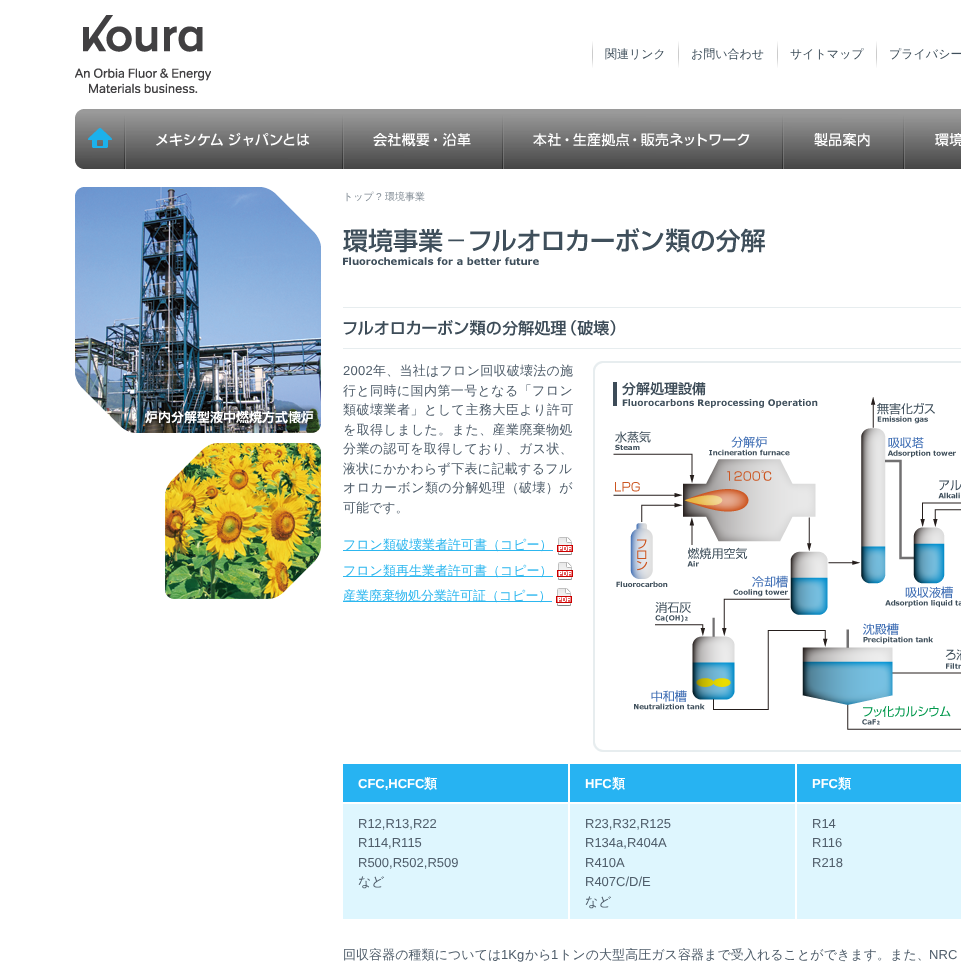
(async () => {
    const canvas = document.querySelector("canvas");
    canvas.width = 961;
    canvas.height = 963;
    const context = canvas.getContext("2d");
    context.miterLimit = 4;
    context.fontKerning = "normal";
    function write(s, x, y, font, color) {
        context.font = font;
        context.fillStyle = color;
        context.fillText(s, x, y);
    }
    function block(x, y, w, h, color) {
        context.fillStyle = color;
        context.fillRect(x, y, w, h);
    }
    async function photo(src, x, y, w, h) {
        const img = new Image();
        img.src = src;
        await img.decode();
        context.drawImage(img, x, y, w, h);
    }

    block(0, 0, 961, 963, "rgb(255, 255, 255)");
    await photo("media/1.png", 75, 15, 136, 78);
    await photo("media/2.png", 592, 41, 1, 27);
    write("関連リンク", 605, 58, "500 12px WenQuanYi Zen Hei", "rgb(63, 79, 91)");
    await photo("media/2.png", 678, 41, 1, 27);
    write("お問い合わせ", 691, 58, "500 12px WenQuanYi Zen Hei", "rgb(63, 79, 91)");
    await photo("media/2.png", 777, 41, 1, 27);
    write("サイトマップ", 790, 58, "500 12px WenQuanYi Zen Hei", "rgb(63, 79, 91)");
    await photo("media/2.png", 876, 41, 1, 27);
    write("プライバシー", 889, 58, "500 12px WenQuanYi Zen Hei", "rgb(63, 79, 91)");
    await photo("media/3.png", 75, 109, 50, 60);
    await photo("media/4.png", 125, 109, 218, 60);
    await photo("media/5.png", 343, 109, 160, 60);
    await photo("media/6.png", 503, 109, 280, 60);
    await photo("media/7.png", 783, 109, 121, 60);
    await photo("media/8.png", 904, 109, 57, 60);
    await photo("media/9.png", 75, 187, 246, 246);
    await photo("media/10.png", 165, 443, 156, 156);
    write("トップ", 343, 200, "500 10px WenQuanYi Zen Hei", "rgb(132, 142, 151)");
    write("?", 376, 200, "10px Liberation Sans", "rgb(132, 142, 151)");
    write("環境事業", 385, 200, "500 10px WenQuanYi Zen Hei", "rgb(132, 142, 151)");
    await photo("media/11.png", 343, 228, 422, 37);
    await photo("media/12.png", 343, 307, 618, 42);
    context.letterSpacing = "0.25px";
    write("2002", 343, 375, "13px Liberation Sans", "rgb(79, 93, 106)");
    write("年、当社はフロン回収破壊法の施", 373, 375, "500 13px WenQuanYi Zen Hei", "rgb(79, 93, 106)");
    context.letterSpacing = "0.4px";
    write("行と同時に国内第一号となる「フロン", 343, 395, "500 13px WenQuanYi Zen Hei", "rgb(79, 93, 106)");
    context.letterSpacing = "0.5px";
    write("類破壊業者」として主務大臣より許可", 343, 414, "500 13px WenQuanYi Zen Hei", "rgb(79, 93, 106)");
    context.letterSpacing = "0.4px";
    write("を取得しました。また、産業廃棄物処", 343, 434, "500 13px WenQuanYi Zen Hei", "rgb(79, 93, 106)");
    write("分業の認可を取得しており、ガス状、", 343, 453, "500 13px WenQuanYi Zen Hei", "rgb(79, 93, 106)");
    context.letterSpacing = "0.3px";
    write("液状にかかわらず下表に記載するフル", 343, 473, "500 13px WenQuanYi Zen Hei", "rgb(79, 93, 106)");
    context.letterSpacing = "0.4px";
    write("オロカーボン類の分解処理（破壊）が", 343, 492, "500 13px WenQuanYi Zen Hei", "rgb(79, 93, 106)");
    context.letterSpacing = "0px";
    write("可能です。", 343, 512, "500 13px WenQuanYi Zen Hei", "rgb(79, 93, 106)");
    await photo("media/13.png", 593, 361, 368, 391);
    block(343, 550, 210, 1, "rgb(45, 183, 239)");
    write("フロン類破壊業者許可書（コピー）", 343, 549, "500 13px WenQuanYi Zen Hei", "rgb(45, 183, 239)");
    await photo("media/14.png", 557, 537, 16, 18);
    block(343, 576, 210, 1, "rgb(45, 183, 239)");
    write("フロン類再生業者許可書（コピー）", 343, 575, "500 13px WenQuanYi Zen Hei", "rgb(45, 183, 239)");
    await photo("media/14.png", 557, 562, 16, 18);
    block(343, 601, 209, 1, "rgb(45, 183, 239)");
    write("産業廃棄物処分業許可証（コピー）", 343, 600, "500 13px WenQuanYi Zen Hei", "rgb(45, 183, 239)");
    await photo("media/14.png", 556, 588, 16, 18);
    block(343, 764, 225, 38, "rgb(39, 179, 242)");
    write("CFC,HCFC", 358, 788, "bold 13px Liberation Sans", "rgb(255, 255, 255)");
    write("類", 424, 788, "bold 13px WenQuanYi Zen Hei", "rgb(255, 255, 255)");
    block(570, 764, 225, 38, "rgb(39, 179, 242)");
    write("HFC", 585, 788, "bold 13px Liberation Sans", "rgb(255, 255, 255)");
    write("類", 612, 788, "bold 13px WenQuanYi Zen Hei", "rgb(255, 255, 255)");
    block(797, 764, 164, 38, "rgb(39, 179, 242)");
    write("PFC", 812, 788, "bold 13px Liberation Sans", "rgb(255, 255, 255)");
    write("類", 838, 788, "bold 13px WenQuanYi Zen Hei", "rgb(255, 255, 255)");
    block(343, 804, 618, 115, "rgb(222, 246, 254)");
    write("R12,R13,R22", 358, 828, "13px Liberation Sans", "rgb(79, 93, 106)");
    write("R114,R115", 358, 847, "13px Liberation Sans", "rgb(79, 93, 106)");
    write("R500,R502,R509", 358, 867, "13px Liberation Sans", "rgb(79, 93, 106)");
    write("など", 358, 886, "500 13px WenQuanYi Zen Hei", "rgb(79, 93, 106)");
    block(568, 802, 2, 119, "rgb(255, 255, 255)");
    write("R23,R32,R125", 585, 828, "13px Liberation Sans", "rgb(79, 93, 106)");
    write("R134a,R404A", 585, 847, "13px Liberation Sans", "rgb(79, 93, 106)");
    write("R410A", 585, 867, "13px Liberation Sans", "rgb(79, 93, 106)");
    write("R407C/D/E", 585, 886, "13px Liberation Sans", "rgb(79, 93, 106)");
    write("など", 585, 906, "500 13px WenQuanYi Zen Hei", "rgb(79, 93, 106)");
    block(795, 802, 2, 119, "rgb(255, 255, 255)");
    write("R14", 812, 828, "13px Liberation Sans", "rgb(79, 93, 106)");
    write("R116", 812, 847, "13px Liberation Sans", "rgb(79, 93, 106)");
    write("R218", 812, 867, "13px Liberation Sans", "rgb(79, 93, 106)");
    context.letterSpacing = "0.05px";
    write("回収容器の種類については", 343, 959, "500 13px WenQuanYi Zen Hei", "rgb(79, 93, 106)");
    write("1Kg", 501, 959, "13px Liberation Sans", "rgb(79, 93, 106)");
    write("から", 525, 959, "500 13px WenQuanYi Zen Hei", "rgb(79, 93, 106)");
    write("1", 551, 959, "13px Liberation Sans", "rgb(79, 93, 106)");
    write("トンの大型高圧ガス容器まで受入れることができます。また、", 559, 959, "500 13px WenQuanYi Zen Hei", "rgb(79, 93, 106)");
    write("NRC", 929, 959, "13px Liberation Sans", "rgb(79, 93, 106)");
})();
